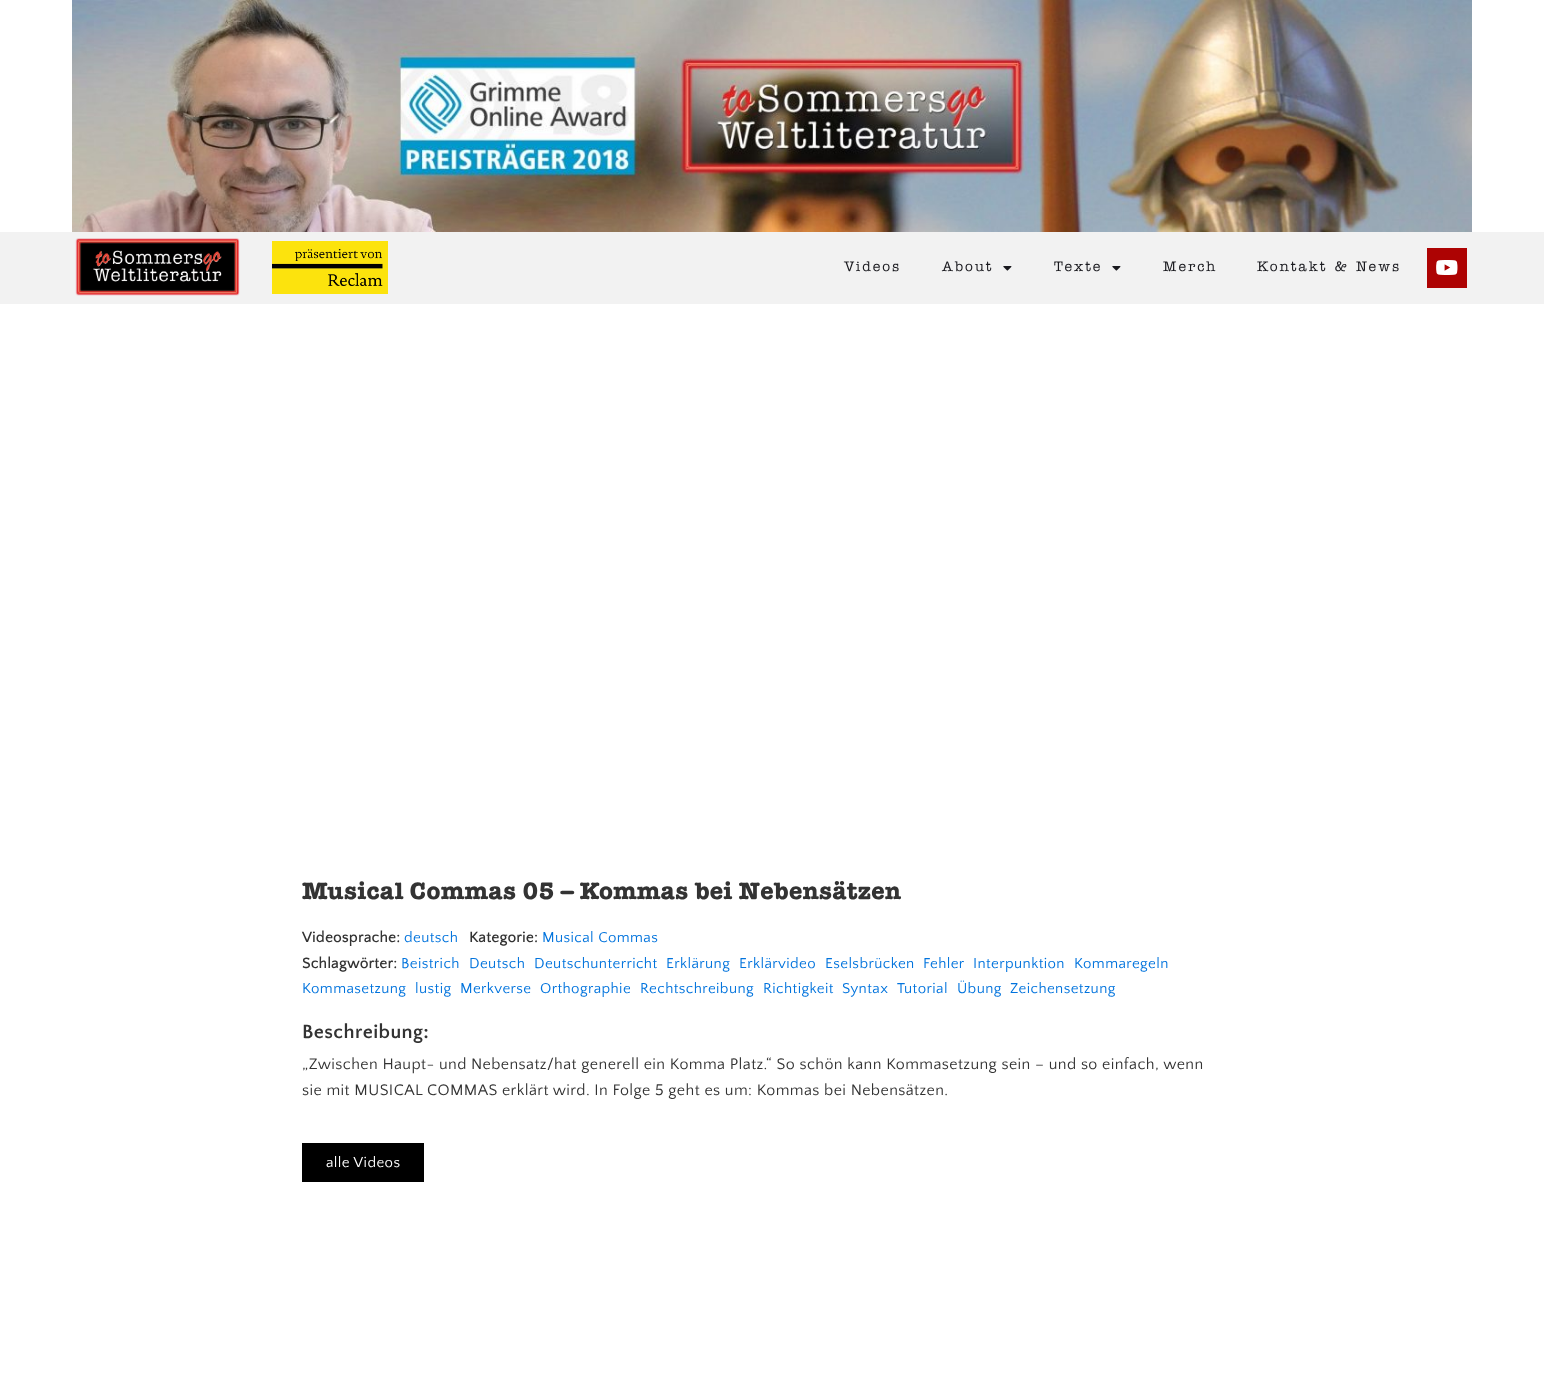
(async () => {
    const canvas = document.querySelector("canvas");
    canvas.width = 1544;
    canvas.height = 1397;
    const context = canvas.getContext("2d");
    context.miterLimit = 4;
    context.fontKerning = "normal";
    function write(s, x, y, font, color) {
        context.font = font;
        context.fillStyle = color;
        context.fillText(s, x, y);
    }
    function block(x, y, w, h, color) {
        context.fillStyle = color;
        context.fillRect(x, y, w, h);
    }
    async function photo(src, x, y, w, h) {
        const img = new Image();
        img.src = src;
        await img.decode();
        context.drawImage(img, x, y, w, h);
    }

    block(0, 0, 1544, 1397, "rgb(255, 255, 255)");
    await photo("media/1.png", 72, 0, 1400, 232);
    block(0, 232, 1544, 72, "rgb(242, 242, 242)");
    await photo("media/2.png", 75, 238, 165, 58);
    await photo("media/3.png", 272, 241, 116, 53);
    context.letterSpacing = "2px";
    write("Videos", 844, 271, "500 14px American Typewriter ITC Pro", "rgb(25, 25, 30)");
    write("About", 942, 271, "500 14px American Typewriter ITC Pro", "rgb(25, 25, 30)");
    await photo("media/4.png", 1003, 266, 9, 5);
    write("Texte", 1054, 271, "500 14px American Typewriter ITC Pro", "rgb(25, 25, 30)");
    await photo("media/4.png", 1112, 266, 9, 5);
    write("Merch", 1163, 271, "500 14px American Typewriter ITC Pro", "rgb(25, 25, 30)");
    write("Kontakt & News", 1257, 271, "500 14px American Typewriter ITC Pro", "rgb(25, 25, 30)");
    block(1427, 248, 40, 40, "rgb(173, 3, 3)");
    await photo("media/5.png", 1436, 260, 22, 15);
    context.letterSpacing = "0.4px";
    write("Musical Commas 05 – Kommas bei Nebensätzen", 302, 899, "bold 24px American Typewriter ITC Pro", "rgb(51, 51, 51)");
    write("Videosprache:", 302, 942, "bold 15px Quattrocento Sans", "rgb(51, 51, 51)");
    write("deutsch", 404, 942, "15px Quattrocento Sans", "rgb(1, 115, 221)");
    write("Kategorie:", 469, 942, "bold 15px Quattrocento Sans", "rgb(51, 51, 51)");
    write("Musical Commas", 542, 942, "15px Quattrocento Sans", "rgb(1, 115, 221)");
    write("Schlagwörter:", 302, 968, "bold 15px Quattrocento Sans", "rgb(51, 51, 51)");
    write("Beistrich", 401, 968, "15px Quattrocento Sans", "rgb(1, 115, 221)");
    write("Deutsch", 469, 968, "15px Quattrocento Sans", "rgb(1, 115, 221)");
    write("Deutschunterricht", 534, 968, "15px Quattrocento Sans", "rgb(1, 115, 221)");
    write("Erklärung", 666, 968, "15px Quattrocento Sans", "rgb(1, 115, 221)");
    write("Erklärvideo", 739, 968, "15px Quattrocento Sans", "rgb(1, 115, 221)");
    write("Eselsbrücken", 825, 968, "15px Quattrocento Sans", "rgb(1, 115, 221)");
    write("Fehler", 923, 968, "15px Quattrocento Sans", "rgb(1, 115, 221)");
    write("Interpunktion", 973, 968, "15px Quattrocento Sans", "rgb(1, 115, 221)");
    write("Kommaregeln", 1074, 968, "15px Quattrocento Sans", "rgb(1, 115, 221)");
    write("Kommasetzung", 302, 993, "15px Quattrocento Sans", "rgb(1, 115, 221)");
    write("lustig", 415, 993, "15px Quattrocento Sans", "rgb(1, 115, 221)");
    write("Merkverse", 460, 993, "15px Quattrocento Sans", "rgb(1, 115, 221)");
    write("Orthographie", 540, 993, "15px Quattrocento Sans", "rgb(1, 115, 221)");
    write("Rechtschreibung", 640, 993, "15px Quattrocento Sans", "rgb(1, 115, 221)");
    write("Richtigkeit", 763, 993, "15px Quattrocento Sans", "rgb(1, 115, 221)");
    write("Syntax", 842, 993, "15px Quattrocento Sans", "rgb(1, 115, 221)");
    write("Tutorial", 897, 993, "15px Quattrocento Sans", "rgb(1, 115, 221)");
    write("Übung", 957, 993, "15px Quattrocento Sans", "rgb(1, 115, 221)");
    write("Zeichensetzung", 1010, 993, "15px Quattrocento Sans", "rgb(1, 115, 221)");
    write("Beschreibung:", 302, 1038, "bold 20px 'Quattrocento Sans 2'", "rgb(51, 51, 51)");
    write("„Zwischen Haupt- und Nebensatz/hat generell ein Komma Platz.“ So schön kann Kommasetzung sein – und so einfach, wenn", 302, 1069, "16px 'Quattrocento Sans 2'", "rgb(51, 51, 51)");
    write("sie mit MUSICAL COMMAS erklärt wird. In Folge 5 geht es um: Kommas bei Nebensätzen.", 302, 1095, "16px 'Quattrocento Sans 2'", "rgb(51, 51, 51)");
    block(302, 1143, 122, 39, "rgb(0, 0, 0)");
    write("alle Videos", 326, 1167, "15px Quattrocento Sans", "rgb(255, 255, 255)");
})();
